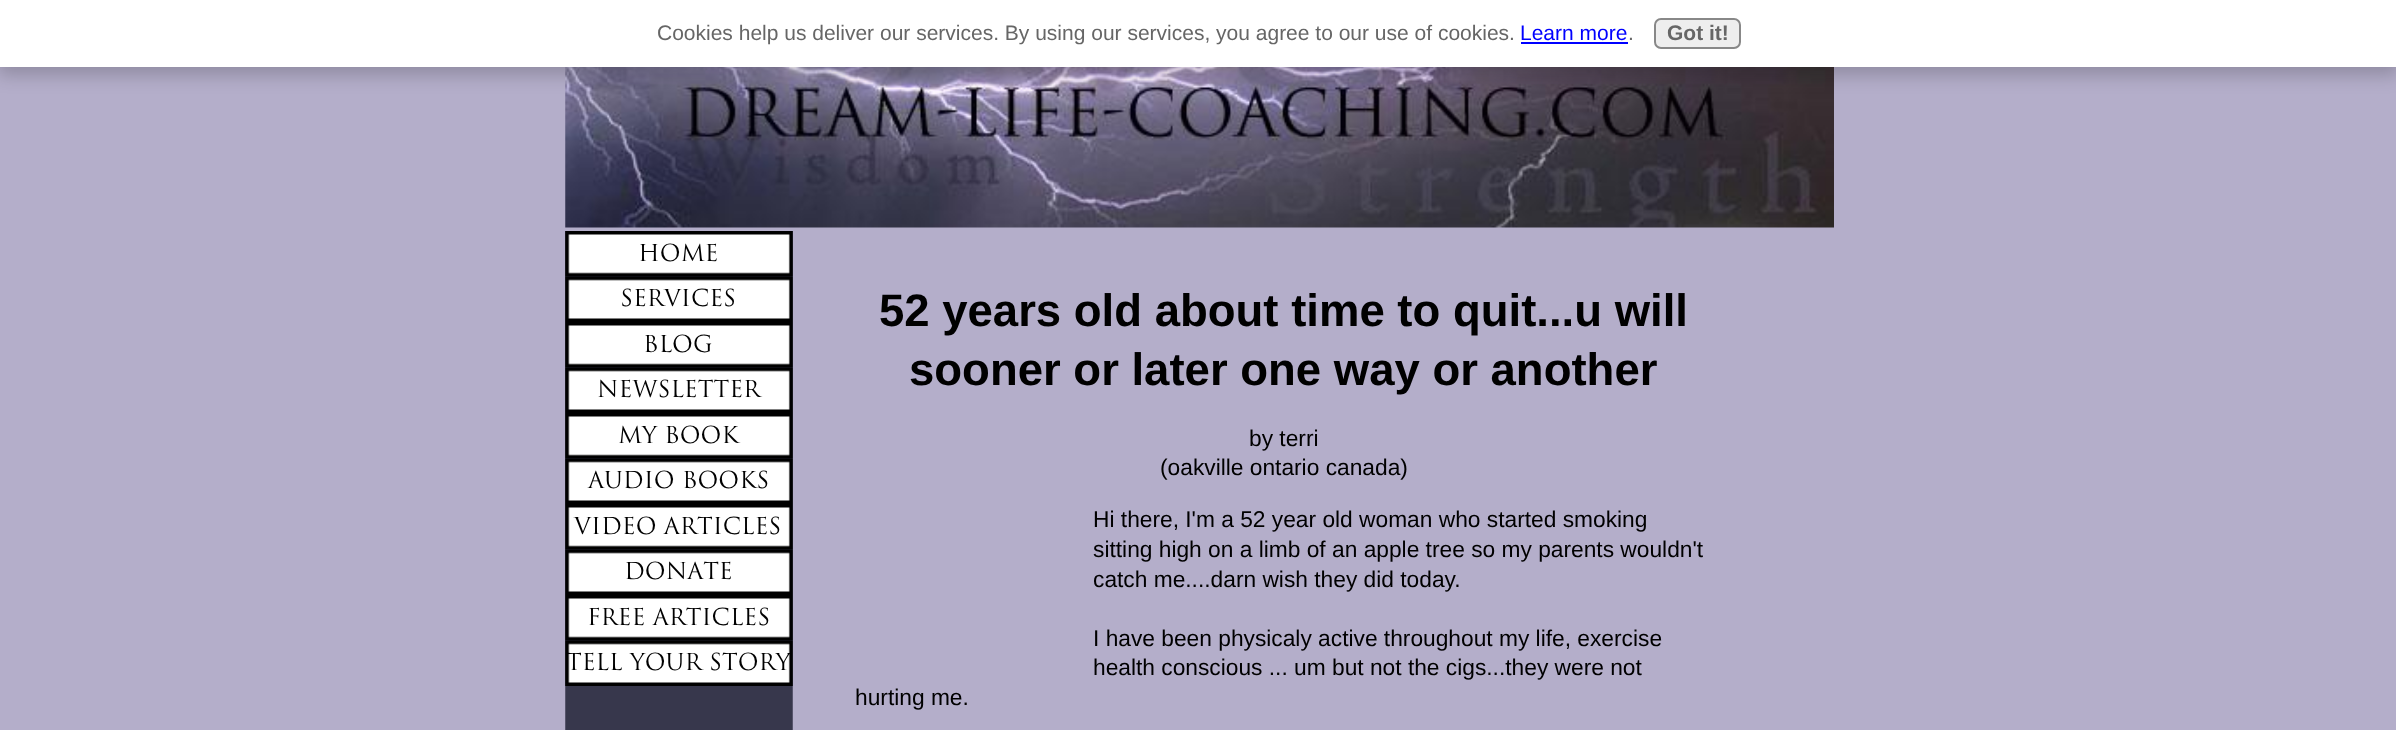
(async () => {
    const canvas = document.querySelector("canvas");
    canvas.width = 2396;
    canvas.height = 730;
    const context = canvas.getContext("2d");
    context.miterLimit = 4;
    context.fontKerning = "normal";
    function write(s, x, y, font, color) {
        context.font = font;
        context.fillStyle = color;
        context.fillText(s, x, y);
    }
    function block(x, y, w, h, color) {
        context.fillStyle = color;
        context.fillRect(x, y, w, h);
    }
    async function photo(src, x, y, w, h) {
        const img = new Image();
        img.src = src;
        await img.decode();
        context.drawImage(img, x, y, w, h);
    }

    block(0, 0, 2396, 730, "rgb(180, 174, 202)");
    await photo("media/1.png", 565, 67, 1269, 161);
    context.fillStyle = "rgba(0, 0, 0, 0.2)";
    context.filter = "blur(9px)";
    context.beginPath();
    context.rect(-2, 5, 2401, 70);
    context.fill();
    context.filter = "none";
    block(0, 0, 2396, 67, "rgb(255, 255, 255)");
    write("Cookies help us deliver our services. By using our services, you agree to our use of cookies.", 657, 40, "21px Liberation Sans", "rgb(102, 102, 102)");
    write("Learn more", 1520, 40, "21px Liberation Sans", "rgb(0, 0, 255)");
    block(1521, 42, 107, 2, "rgb(0, 0, 255)");
    write(".", 1628, 40, "21px Liberation Sans", "rgb(102, 102, 102)");
    context.fillStyle = "rgb(238, 238, 238)";
    context.beginPath();
    context.roundRect(1655, 19, 85, 29, 6);
    context.fill();
    context.strokeStyle = "rgb(136, 136, 136)";
    context.lineWidth = 2;
    context.stroke();
    write("Got it!", 1667, 40, "bold 21px Liberation Sans", "rgb(102, 102, 102)");
    await photo("media/2.png", 565, 231, 228, 499);
    await photo("media/3.png", 565, 231, 228, 46);
    write("Home", 638, 261, "22.75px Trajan", "rgb(0, 0, 0)");
    await photo("media/4.png", 565, 276, 228, 46);
    write("SERVICES", 620, 306, "22.75px Trajan", "rgb(0, 0, 0)");
    await photo("media/5.png", 565, 322, 228, 46);
    write("blog", 643, 352, "22.75px Trajan", "rgb(0, 0, 0)");
    await photo("media/4.png", 565, 367, 228, 46);
    write("Newsletter", 597, 397, "22.75px Trajan", "rgb(0, 0, 0)");
    await photo("media/5.png", 565, 413, 228, 46);
    write("my book", 618, 443, "22.75px Trajan", "rgb(0, 0, 0)");
    await photo("media/4.png", 565, 458, 228, 46);
    write("audio books", 588, 488, "22.75px Trajan", "rgb(0, 0, 0)");
    await photo("media/5.png", 565, 504, 228, 46);
    write("Video Articles", 574, 534, "22.75px Trajan", "rgb(0, 0, 0)");
    await photo("media/4.png", 565, 549, 228, 46);
    write("Donate", 624, 579, "22.75px Trajan", "rgb(0, 0, 0)");
    await photo("media/5.png", 565, 595, 228, 46);
    write("Free Articles", 587, 625, "22.75px Trajan", "rgb(0, 0, 0)");
    await photo("media/4.png", 565, 640, 228, 46);
    write("Tell your story", 566, 670, "22.75px Trajan", "rgb(0, 0, 0)");
    write("52 years old about time to quit...u will", 879, 326, "bold 45.5px Liberation Sans", "rgb(0, 0, 0)");
    write("sooner or later one way or another", 909, 385, "bold 45.5px Liberation Sans", "rgb(0, 0, 0)");
    write("by terri", 1249, 446, "22.75px Liberation Sans", "rgb(0, 0, 0)");
    write("(oakville ontario canada)", 1160, 475, "22.75px Liberation Sans", "rgb(0, 0, 0)");
    write("Hi there, I'm a 52 year old woman who started smoking", 1093, 527, "22.75px Liberation Sans", "rgb(0, 0, 0)");
    write("sitting high on a limb of an apple tree so my parents wouldn't", 1093, 557, "22.75px Liberation Sans", "rgb(0, 0, 0)");
    write("catch me....darn wish they did today.", 1093, 587, "22.75px Liberation Sans", "rgb(0, 0, 0)");
    write("I have been physicaly active throughout my life, exercise", 1093, 646, "22.75px Liberation Sans", "rgb(0, 0, 0)");
    write("health conscious ... um but not the cigs...they were not", 1093, 675, "22.75px Liberation Sans", "rgb(0, 0, 0)");
    write("hurting me.", 855, 705, "22.75px Liberation Sans", "rgb(0, 0, 0)");
})();
